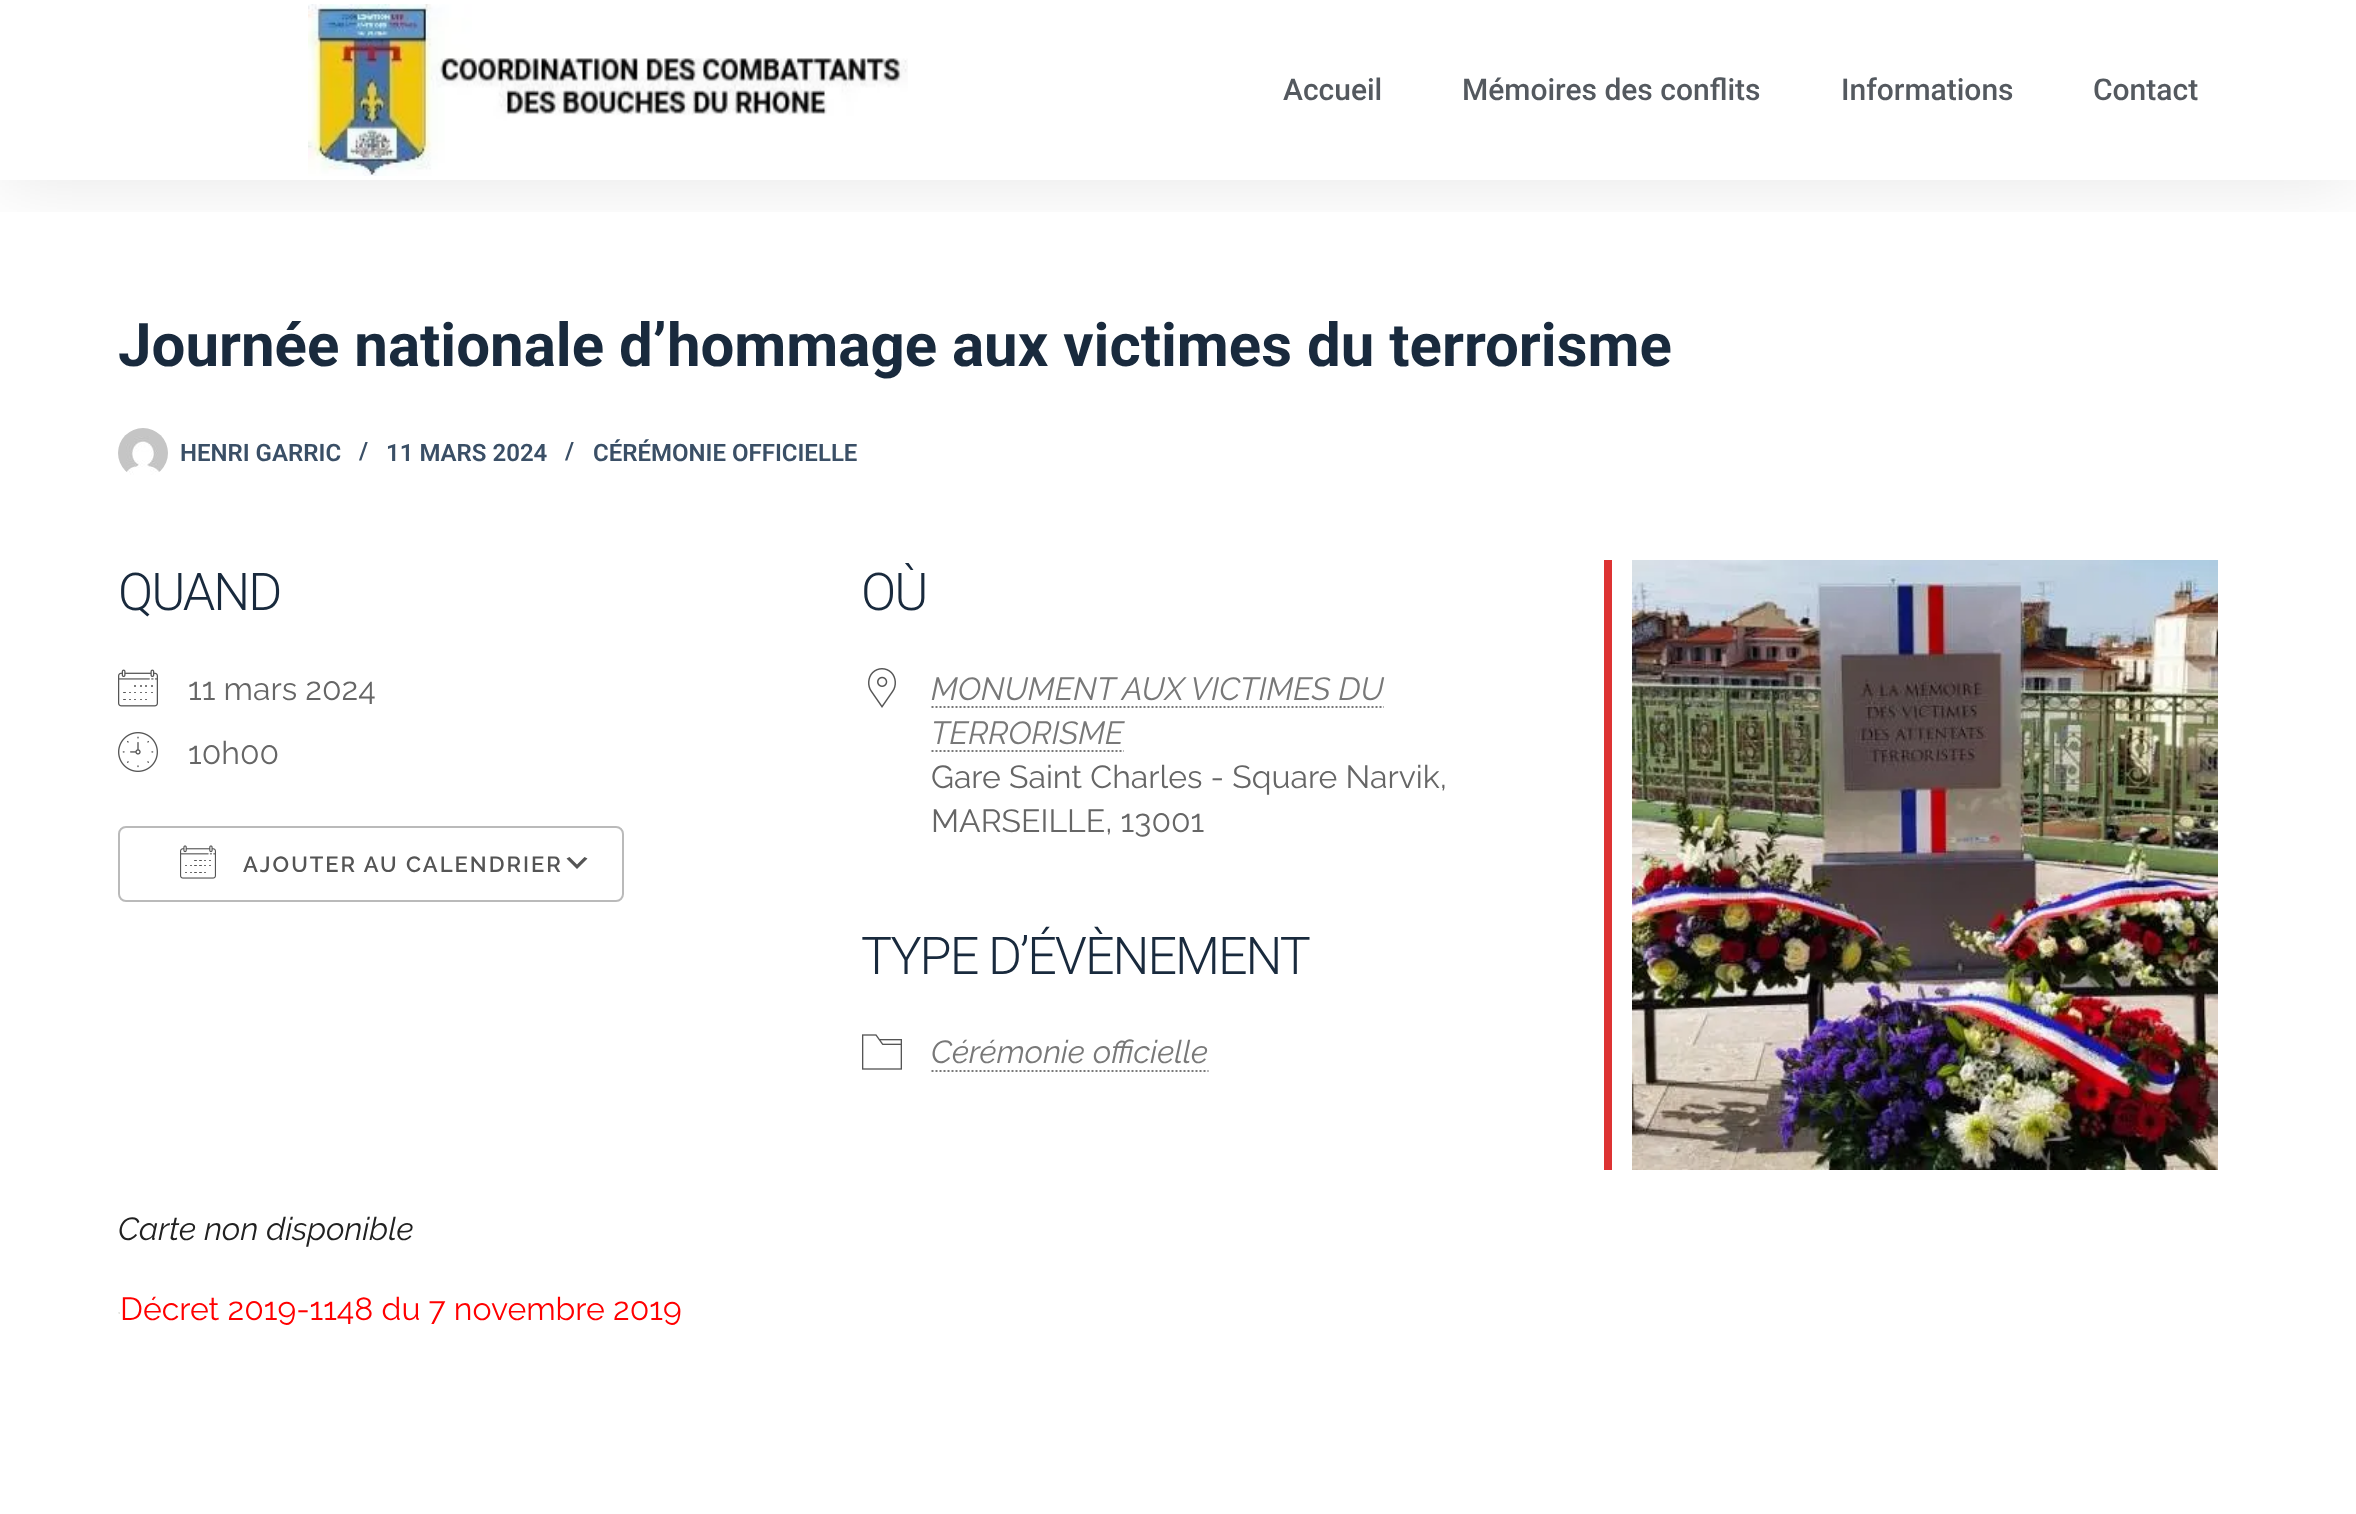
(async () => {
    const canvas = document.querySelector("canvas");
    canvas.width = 2356;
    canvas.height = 1514;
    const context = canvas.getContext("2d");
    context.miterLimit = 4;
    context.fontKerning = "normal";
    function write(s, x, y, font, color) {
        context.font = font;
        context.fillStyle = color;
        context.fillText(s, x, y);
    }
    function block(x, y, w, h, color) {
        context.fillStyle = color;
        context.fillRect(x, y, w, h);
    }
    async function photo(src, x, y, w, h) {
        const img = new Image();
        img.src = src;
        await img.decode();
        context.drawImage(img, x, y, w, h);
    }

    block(0, 0, 2356, 1514, "rgb(255, 255, 255)");
    context.save();
    context.beginPath();
    context.rect(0, 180, 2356, 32);
    context.clip();
    context.fillStyle = "rgba(0, 0, 0, 0.1)";
    context.filter = "blur(38px)";
    context.beginPath();
    context.rect(0, 0, 2356, 180);
    context.fill();
    context.filter = "none";
    context.restore();
    await photo("media/1.png", 308, 4, 600, 172);
    write("Accueil", 1283, 100, "500 30px Roboto", "rgb(84, 89, 95)");
    write("Mémoires des conflits", 1462, 100, "500 30px Roboto", "rgb(84, 89, 95)");
    write("Informations", 1841, 100, "500 30px Roboto", "rgb(84, 89, 95)");
    write("Contact", 2093, 100, "500 30px Roboto", "rgb(84, 89, 95)");
    write("Journée nationale d’hommage aux victimes du terrorisme", 118, 366, "bold 60px Roboto", "rgb(25, 42, 61)");
    await photo("media/2.png", 118, 428, 50, 47);
    write("HENRI GARRIC", 180, 461, "600 24px Roboto", "rgb(58, 79, 102)");
    write("/", 359, 459, "600 24px Roboto", "rgb(58, 79, 102)");
    write("11 MARS 2024", 386, 461, "600 24px Roboto", "rgb(58, 79, 102)");
    write("/", 565, 459, "600 24px Roboto", "rgb(58, 79, 102)");
    write("CÉRÉMONIE OFFICIELLE", 593, 461, "600 24px Roboto", "rgb(58, 79, 102)");
    context.letterSpacing = "-2px";
    write("QUAND", 118, 610, "300 52px Roboto", "rgb(25, 42, 61)");
    await photo("media/3.png", 118, 669, 40, 38);
    context.letterSpacing = "0px";
    write("11 mars 2024", 188, 700, "32px Raleway", "rgb(102, 102, 102)");
    await photo("media/4.png", 118, 732, 40, 40);
    write("10h00", 188, 764, "32px Raleway", "rgb(102, 102, 102)");
    context.fillStyle = "rgb(85, 85, 85)";
    context.beginPath();
    context.moveTo(569.5, 857);
    context.lineTo(577, 864.5);
    context.lineTo(584.5, 857);
    context.lineTo(587.5, 858.5);
    context.lineTo(577, 869);
    context.lineTo(566.5, 858.5);
    context.closePath();
    context.fill();
    context.beginPath();
    context.roundRect(119, 827, 504, 74, 7);
    context.strokeStyle = "rgb(186, 186, 186)";
    context.lineWidth = 2;
    context.stroke();
    await photo("media/5.png", 180, 845, 36, 34);
    context.letterSpacing = "2px";
    write("AJOUTER AU CALENDRIER", 243, 872, "600 22px Raleway", "rgb(84, 84, 84)");
    context.letterSpacing = "-2px";
    write("OÙ", 861, 610, "300 52px Roboto", "rgb(25, 42, 61)");
    await photo("media/6.png", 868, 668, 28, 40);
    context.letterSpacing = "0px";
    write("MONUMENT AUX VICTIMES DU", 931, 700, "italic 32px Raleway", "rgb(120, 120, 120)");
    context.beginPath();
    context.moveTo(931.5, 707);
    context.lineTo(1384, 707);
    context.strokeStyle = "rgb(120, 120, 120)";
    context.setLineDash([2, 2]);
    context.stroke();
    write("TERRORISME", 931, 744, "italic 32px Raleway", "rgb(120, 120, 120)");
    context.beginPath();
    context.moveTo(931.5, 751);
    context.lineTo(1124, 751);
    context.stroke();
    write("Gare Saint Charles - Square Narvik,", 931, 788, "32px Raleway", "rgb(102, 102, 102)");
    write("MARSEILLE, 13001", 931, 832, "32px Raleway", "rgb(102, 102, 102)");
    context.letterSpacing = "-2px";
    write("TYPE D’ÉVÈNEMENT", 861, 974, "300 52px Roboto", "rgb(25, 42, 61)");
    await photo("media/7.png", 862, 1034, 40, 36);
    context.letterSpacing = "0px";
    write("Cérémonie officielle", 931, 1063, "italic 32px Raleway", "rgb(120, 120, 120)");
    context.beginPath();
    context.moveTo(931.5, 1071);
    context.lineTo(1208.5, 1071);
    context.stroke();
    block(1604, 560, 8, 610, "rgb(221, 51, 51)");
    await photo("media/8.png", 1632, 560, 586, 610);
    write("Carte non disponible", 118, 1240, "italic 32px Raleway", "rgb(33, 33, 33)");
    await photo("media/9.png", 118, 1312, 2, 2);
    write("Décret 2019-1148 du 7 novembre 2019", 120, 1320, "32px Raleway", "rgb(255, 0, 0)");
})();
